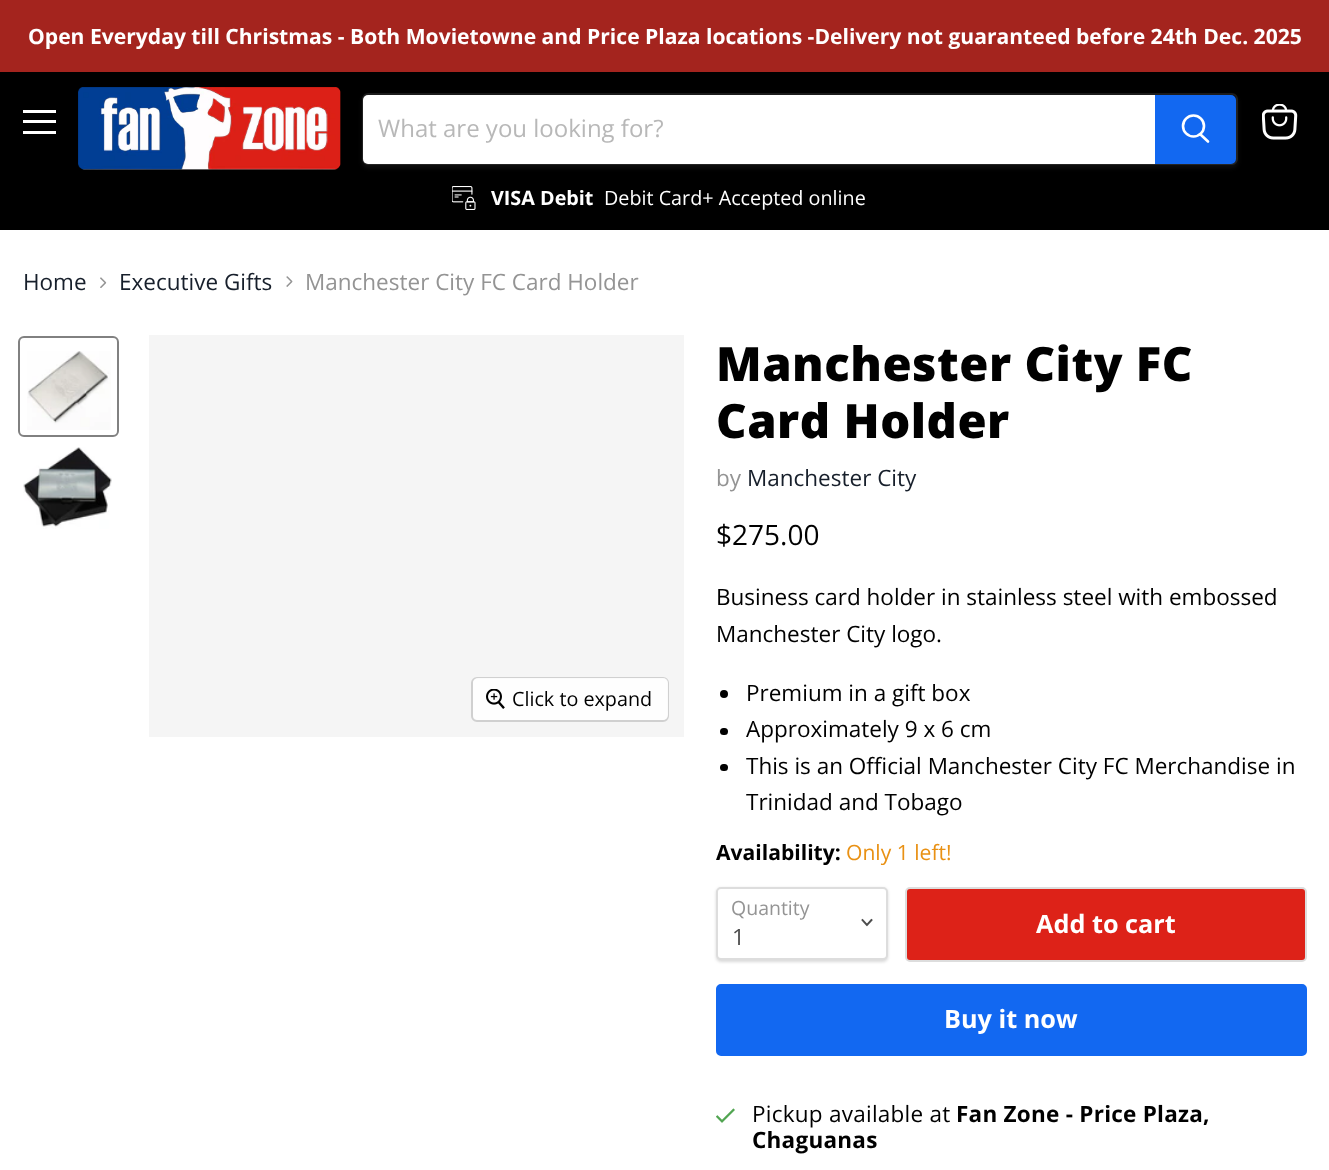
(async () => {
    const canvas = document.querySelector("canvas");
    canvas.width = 1329;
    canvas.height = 1170;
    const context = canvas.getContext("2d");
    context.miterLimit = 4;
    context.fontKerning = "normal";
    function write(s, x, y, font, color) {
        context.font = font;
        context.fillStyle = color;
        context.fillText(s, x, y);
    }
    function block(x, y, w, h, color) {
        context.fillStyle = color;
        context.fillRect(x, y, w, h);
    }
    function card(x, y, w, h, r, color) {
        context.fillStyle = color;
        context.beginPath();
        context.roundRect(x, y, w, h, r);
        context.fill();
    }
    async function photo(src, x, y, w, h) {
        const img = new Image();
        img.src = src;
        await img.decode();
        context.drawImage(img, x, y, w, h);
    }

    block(0, 0, 1329, 1170, "rgb(255, 255, 255)");
    block(0, 0, 1329, 72, "rgb(164, 36, 30)");
    write("Open Everyday till Christmas - Both Movietowne and Price Plaza locations -Delivery not guaranteed before 24th Dec. 2025", 28, 44, "bold 21.1px Open Sans", "rgb(255, 255, 255)");
    block(0, 72, 1329, 158, "rgb(0, 0, 0)");
    block(23, 110, 33, 3, "rgb(255, 255, 255)");
    block(23, 120, 33, 3, "rgb(255, 255, 255)");
    block(23, 131, 33, 3, "rgb(255, 255, 255)");
    await photo("media/1.png", 78, 87, 263, 83);
    context.fillStyle = "rgba(128, 128, 128, 0.11)";
    context.filter = "blur(2px)";
    context.beginPath();
    context.roundRect(362, 96, 876, 72, 6);
    context.fill();
    context.filter = "none";
    context.beginPath();
    context.roundRect(363, 94, 874, 70, 5);
    context.strokeStyle = "rgba(128, 128, 128, 0.2)";
    context.lineWidth = 2;
    context.stroke();
    context.fillStyle = "rgb(255, 255, 255)";
    context.beginPath();
    context.roundRect(363, 95, 792, 69, [5, 0, 0, 5]);
    context.fill();
    write("What are you looking for?", 378, 137, "24px Open Sans", "rgb(184, 184, 184)");
    context.fillStyle = "rgb(18, 104, 241)";
    context.beginPath();
    context.roundRect(1156, 96, 79, 67, [0, 4, 4, 0]);
    context.fill();
    context.strokeStyle = "rgb(18, 104, 241)";
    context.stroke();
    context.beginPath();
    context.moveTo(1208, 141.5);
    context.lineTo(1200.5, 134.5);
    context.strokeStyle = "rgb(255, 255, 255)";
    context.lineWidth = 2.6;
    context.lineCap = "round";
    context.stroke();
    context.beginPath();
    context.arc(1193.5, 126, 10.5, 0, Math.PI * 2);
    context.stroke();
    await photo("media/2.png", 452, 186, 24, 24);
    write("VISA Debit", 491, 205, "bold 19.75px Open Sans", "rgb(255, 255, 255)");
    write("Debit Card+ Accepted online", 604, 205, "19.75px Open Sans", "rgb(255, 255, 255)");
    await photo("media/3.png", 1262, 104, 36, 36);
    write("Home", 23, 290, "22.5px Open Sans", "rgb(23, 31, 43)");
    await photo("media/4.png", 100, 277, 7, 11);
    write("Executive Gifts", 119, 290, "22.5px Open Sans", "rgb(23, 31, 43)");
    await photo("media/5.png", 286, 276, 7, 11);
    write("Manchester City FC Card Holder", 305, 290, "22.5px Open Sans", "rgb(148, 148, 148)");
    context.beginPath();
    context.roundRect(19, 337, 99, 99, 5);
    context.strokeStyle = "rgb(129, 129, 129)";
    context.lineWidth = 2;
    context.stroke();
    await photo("media/6.png", 27, 351, 84, 79);
    await photo("media/7.png", 23, 447, 89, 82);
    block(149, 335, 535, 402, "rgb(245, 245, 245)");
    context.beginPath();
    context.roundRect(472, 678, 196, 43, 5);
    context.strokeStyle = "rgb(208, 208, 208)";
    context.stroke();
    card(473, 678, 195, 42, 5, "rgba(255, 255, 255, 0.9)");
    await photo("media/8.png", 486, 689, 19, 20);
    write("Click to expand", 512, 706, "19.75px Open Sans", "rgb(0, 0, 0)");
    context.letterSpacing = "0.5px";
    write("Manchester City FC", 716, 381, "800 47.25px Open Sans", "rgb(0, 0, 0)");
    write("Card Holder", 716, 438, "800 47.25px Open Sans", "rgb(0, 0, 0)");
    context.letterSpacing = "0px";
    write("by", 716, 486, "22.5px Open Sans", "rgb(148, 148, 148)");
    write("Manchester City", 747, 486, "22.5px Open Sans", "rgb(23, 31, 43)");
    write("$275.00", 716, 545, "28px Open Sans", "rgb(0, 0, 0)");
    write("Business card holder in stainless steel with embossed", 716, 605, "22.5px Open Sans", "rgb(0, 0, 0)");
    write("Manchester City logo.", 716, 642, "22.5px Open Sans", "rgb(0, 0, 0)");
    context.beginPath();
    context.arc(724, 694, 4, 0, Math.PI * 2);
    context.fill();
    write("Premium in a gift box", 746, 701, "22.5px Open Sans", "rgb(0, 0, 0)");
    card(720, 728, 8, 7, 3.5, "rgb(0, 0, 0)");
    write("Approximately 9 x 6 cm", 746, 737, "22.5px Open Sans", "rgb(0, 0, 0)");
    card(720, 764, 8, 7, 3.5, "rgb(0, 0, 0)");
    write("This is an Official Manchester City FC Merchandise in", 746, 774, "22.5px Open Sans", "rgb(0, 0, 0)");
    write("Trinidad and Tobago", 746, 810, "22.5px Open Sans", "rgb(0, 0, 0)");
    write("Availability:", 716, 860, "bold 21.1px Open Sans", "rgb(0, 0, 0)");
    write("Only 1 left!", 846, 860, "21.1px Open Sans", "rgb(233, 145, 20)");
    context.fillStyle = "rgba(0, 0, 0, 0.15)";
    context.filter = "blur(1.5px)";
    context.beginPath();
    context.roundRect(716, 888, 172, 74, 5);
    context.fill();
    context.filter = "none";
    context.fillStyle = "rgb(255, 255, 255)";
    context.beginPath();
    context.roundRect(717, 888, 170, 71, 4);
    context.fill();
    context.strokeStyle = "rgb(221, 221, 221)";
    context.stroke();
    write("Quantity", 731, 915, "19.5px Open Sans", "rgb(148, 148, 148)");
    context.beginPath();
    context.moveTo(867, 925);
    context.lineTo(871.5, 920);
    context.moveTo(867, 925);
    context.lineTo(862.5, 920);
    context.strokeStyle = "rgb(77, 77, 77)";
    context.lineWidth = 1.9;
    context.lineCap = "square";
    context.stroke();
    write("1", 732, 945, "22.5px Open Sans", "rgb(77, 77, 77)");
    context.fillStyle = "rgb(221, 34, 24)";
    context.beginPath();
    context.roundRect(906, 888, 400, 73, 4);
    context.fill();
    context.strokeStyle = "rgb(221, 221, 221)";
    context.lineWidth = 2;
    context.stroke();
    write("Add to cart", 1036, 933, "bold 25.25px Open Sans", "rgb(255, 255, 255)");
    context.fillStyle = "rgb(18, 104, 241)";
    context.beginPath();
    context.roundRect(717, 985, 589, 70, 4);
    context.fill();
    context.strokeStyle = "rgb(18, 104, 241)";
    context.stroke();
    write("Buy it now", 944, 1028, "bold 25.25px Open Sans", "rgb(255, 255, 255)");
    await photo("media/9.png", 716, 1108, 19, 15);
    context.letterSpacing = "0.25px";
    write("Pickup available at", 752, 1122, "22.5px Open Sans", "rgb(0, 0, 0)");
    write("Fan Zone - Price Plaza,", 956, 1122, "bold 22.5px Open Sans", "rgb(0, 0, 0)");
    write("Chaguanas", 752, 1148, "bold 22.5px Open Sans", "rgb(0, 0, 0)");
})();
